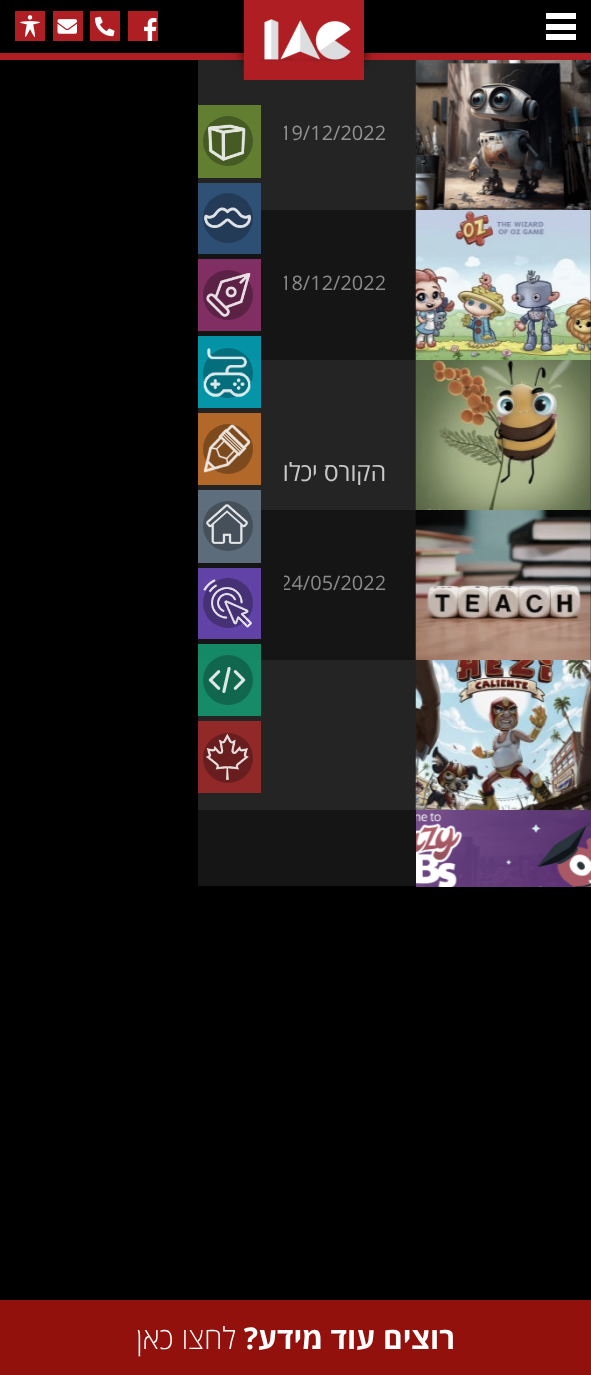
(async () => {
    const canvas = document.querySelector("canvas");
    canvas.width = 591;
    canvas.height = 1375;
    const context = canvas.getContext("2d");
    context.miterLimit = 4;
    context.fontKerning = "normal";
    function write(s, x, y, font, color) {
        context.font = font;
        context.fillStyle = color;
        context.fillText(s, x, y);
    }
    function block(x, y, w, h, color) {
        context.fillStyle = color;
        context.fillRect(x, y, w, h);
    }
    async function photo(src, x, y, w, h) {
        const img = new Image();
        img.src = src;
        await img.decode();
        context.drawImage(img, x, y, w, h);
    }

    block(0, 0, 591, 1375, "rgb(0, 0, 0)");
    block(546, 34, 30, 6, "rgb(255, 255, 255)");
    block(546, 13, 30, 6, "rgb(255, 255, 255)");
    block(546, 24, 30, 6, "rgb(255, 255, 255)");
    block(0, 53, 591, 7, "rgb(175, 30, 35)");
    block(198, 60, 393, 150, "rgb(36, 36, 36)");
    context.fillStyle = "rgb(0, 0, 0)";
    context.filter = "blur(6px)";
    context.beginPath();
    context.rect(244, 0, 120, 60);
    context.fill();
    context.filter = "none";
    block(244, 0, 120, 80, "rgb(175, 30, 35)");
    await photo("media/1.png", 243, 0, 108, 80);
    block(128, 11, 30, 30, "rgb(175, 30, 35)");
    await photo("media/2.png", 144, 18, 13, 23);
    block(90, 11, 30, 30, "rgb(175, 30, 35)");
    await photo("media/3.png", 95, 16, 20, 21);
    block(53, 11, 30, 30, "rgb(175, 30, 35)");
    await photo("media/4.png", 57, 19, 20, 15);
    block(15, 11, 30, 30, "rgb(175, 30, 35)");
    await photo("media/5.png", 20, 15, 20, 22);
    block(198, 183, 63, 27, "rgb(48, 81, 118)");
    await photo("media/6.png", 415, 60, 176, 150);
    context.save();
    context.beginPath();
    context.rect(284, 121, 102, 23);
    context.clip();
    write("19/12/2022", 280, 140, "20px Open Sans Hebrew", "rgb(146, 146, 146)");
    context.restore();
    block(198, 210, 393, 150, "rgb(21, 21, 21)");
    block(198, 336, 63, 24, "rgb(3, 146, 166)");
    block(198, 210, 63, 44, "rgb(46, 79, 116)");
    await photo("media/7.png", 415, 210, 176, 150);
    context.save();
    context.beginPath();
    context.rect(284, 271, 102, 23);
    context.clip();
    write("18/12/2022", 280, 290, "20px Open Sans Hebrew", "rgb(138, 138, 138)");
    context.restore();
    block(198, 360, 393, 150, "rgb(36, 36, 36)");
    block(198, 490, 63, 20, "rgb(95, 110, 124)");
    block(198, 360, 63, 48, "rgb(5, 148, 168)");
    await photo("media/8.png", 415, 360, 176, 150);
    context.save();
    context.beginPath();
    context.rect(284, 456, 102, 29);
    context.clip();
    context.direction = "rtl";
    write("הקורס יכלול", 386, 481, "25px Open Sans Hebrew", "rgb(200, 200, 200)");
    context.restore();
    block(198, 510, 393, 150, "rgb(21, 21, 21)");
    block(198, 644, 63, 16, "rgb(21, 137, 101)");
    block(198, 510, 63, 53, "rgb(92, 108, 122)");
    await photo("media/9.png", 415, 510, 176, 150);
    context.save();
    context.beginPath();
    context.rect(284, 571, 102, 23);
    context.clip();
    write("24/05/2022", 280, 590, "20px Open Sans Hebrew", "rgb(138, 138, 138)");
    context.restore();
    block(198, 660, 393, 150, "rgb(36, 36, 36)");
    block(198, 660, 63, 56, "rgb(23, 139, 103)");
    await photo("media/10.png", 415, 660, 176, 150);
    block(198, 810, 218, 76, "rgb(21, 21, 21)");
    await photo("media/11.png", 416, 810, 175, 77);
    block(198, 105, 63, 73, "rgb(98, 126, 49)");
    context.fillStyle = "rgb(70, 90, 36)";
    context.beginPath();
    context.arc(228, 141, 25, 0, Math.PI * 2);
    context.fill();
    await photo("media/12.png", 208, 124, 38, 37);
    context.fillStyle = "rgb(35, 59, 87)";
    context.beginPath();
    context.arc(228, 218, 25, 0, Math.PI * 2);
    context.fill();
    await photo("media/13.png", 204, 207, 47, 21);
    block(198, 259, 63, 72, "rgb(129, 47, 99)");
    context.fillStyle = "rgb(91, 34, 70)";
    context.beginPath();
    context.arc(228, 295, 25, 0, Math.PI * 2);
    context.fill();
    await photo("media/14.png", 206, 273, 45, 44);
    context.fillStyle = "rgb(4, 110, 125)";
    context.beginPath();
    context.arc(228, 373, 25, 0, Math.PI * 2);
    context.fill();
    await photo("media/15.png", 203, 348, 48, 49);
    block(198, 413, 63, 72, "rgb(177, 104, 41)");
    context.fillStyle = "rgb(125, 74, 30)";
    context.beginPath();
    context.arc(228, 449, 25, 0, Math.PI * 2);
    context.fill();
    await photo("media/16.png", 203, 424, 48, 49);
    context.fillStyle = "rgb(69, 80, 91)";
    context.beginPath();
    context.arc(228, 526, 25, 0, Math.PI * 2);
    context.fill();
    await photo("media/17.png", 206, 504, 42, 40);
    block(198, 568, 63, 71, "rgb(97, 66, 166)");
    context.fillStyle = "rgb(69, 47, 117)";
    context.beginPath();
    context.arc(228, 603, 25, 0, Math.PI * 2);
    context.fill();
    await photo("media/18.png", 203, 578, 49, 50);
    context.fillStyle = "rgb(17, 103, 77)";
    context.beginPath();
    context.arc(228, 680, 25, 0, Math.PI * 2);
    context.fill();
    await photo("media/19.png", 208, 667, 38, 26);
    block(198, 721, 63, 72, "rgb(146, 41, 41)");
    context.fillStyle = "rgb(104, 30, 30)";
    context.beginPath();
    context.arc(228, 758, 25, 0, Math.PI * 2);
    context.fill();
    await photo("media/20.png", 206, 733, 43, 47);
    block(0, 1300, 591, 75, "rgb(146, 17, 12)");
    context.direction = "rtl";
    write("רוצים עוד מידע?", 455, 1349, "bold 30px Open Sans Hebrew", "rgb(255, 255, 255)");
    write("לחצו כאן", 236, 1349, "300 30px Open Sans Hebrew", "rgb(255, 255, 255)");
})();
